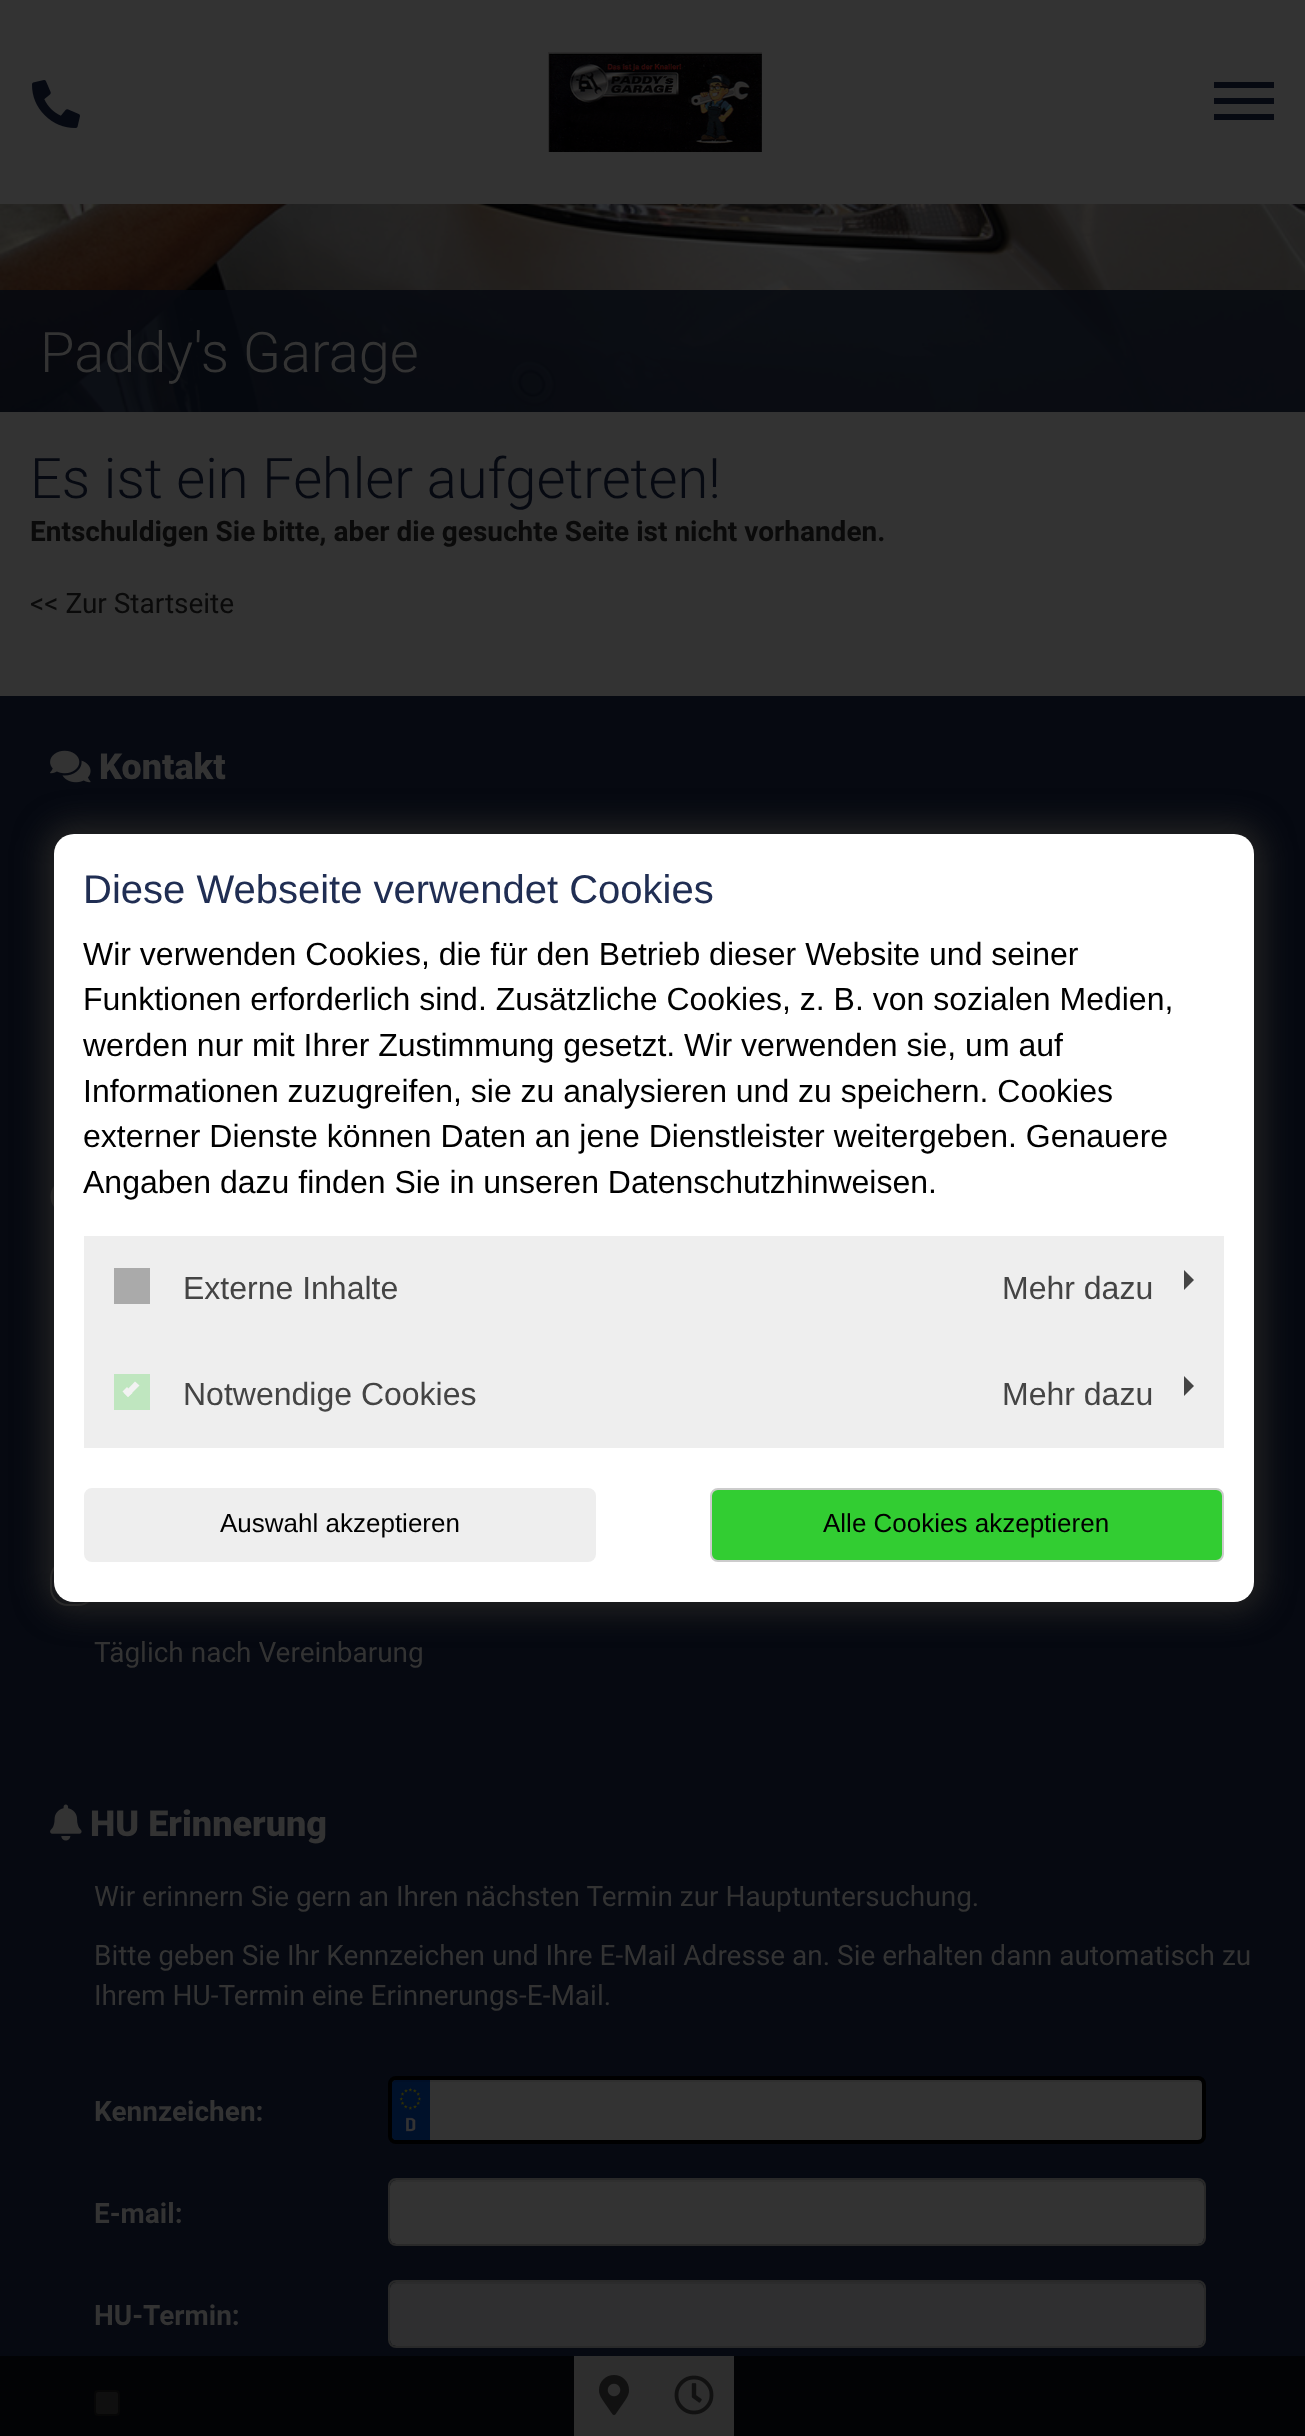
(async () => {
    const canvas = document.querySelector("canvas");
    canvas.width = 1305;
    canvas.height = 2436;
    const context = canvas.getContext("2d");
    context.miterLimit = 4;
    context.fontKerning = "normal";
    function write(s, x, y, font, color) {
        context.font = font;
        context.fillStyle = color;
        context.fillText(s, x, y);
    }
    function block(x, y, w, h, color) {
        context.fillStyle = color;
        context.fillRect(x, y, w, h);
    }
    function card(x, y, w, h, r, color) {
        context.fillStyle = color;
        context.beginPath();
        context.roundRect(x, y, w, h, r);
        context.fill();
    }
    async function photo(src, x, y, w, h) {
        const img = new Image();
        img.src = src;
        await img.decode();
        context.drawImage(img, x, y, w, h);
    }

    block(0, 0, 1305, 2436, "rgb(51, 51, 51)");
    await photo("media/1.png", 32, 80, 48, 48);
    await photo("media/2.png", 548, 52, 214, 100);
    block(1214, 82, 60, 6, "rgb(6, 9, 17)");
    block(1214, 98, 60, 6, "rgb(6, 9, 17)");
    block(1214, 114, 60, 6, "rgb(6, 9, 17)");
    await photo("media/3.png", 0, 204, 1305, 208);
    block(0, 290, 1305, 122, "rgba(6, 9, 17, 0.85)");
    write("Paddy's Garage", 40, 372, "300 56px Roboto", "rgb(51, 51, 51)");
    write("Es ist ein Fehler aufgetreten!", 30, 498, "300 56px Roboto", "rgb(6, 9, 17)");
    write("Entschuldigen Sie bitte, aber die gesuchte Seite ist nicht vorhanden.", 30, 541, "bold 28px Roboto", "rgb(10, 10, 10)");
    write("<< Zur Startseite", 30, 613, "28px Roboto", "rgb(10, 10, 10)");
    block(0, 696, 1305, 1660, "rgb(6, 9, 17)");
    block(0, 2356, 1305, 80, "rgb(2, 3, 5)");
    await photo("media/4.png", 50, 750, 41, 33);
    write("Kontakt", 99, 779, "900 36px Roboto", "rgb(51, 51, 51)");
    await photo("media/5.png", 50, 1186, 4, 21);
    context.beginPath();
    context.roundRect(51, 1561, 44, 44, 17);
    context.strokeStyle = "rgb(51, 51, 51)";
    context.lineWidth = 2;
    context.stroke();
    await photo("media/6.png", 54, 1582, 20, 20);
    write("Täglich nach Vereinbarung", 94, 1662, "28px Roboto", "rgb(51, 51, 51)");
    await photo("media/7.png", 50, 1804, 32, 37);
    write("HU Erinnerung", 90, 1836, "900 36px Roboto", "rgb(51, 51, 51)");
    write("Wir erinnern Sie gern an Ihren nächsten Termin zur Hauptuntersuchung.", 94, 1906, "28px Roboto", "rgb(51, 51, 51)");
    write("Bitte geben Sie Ihr Kennzeichen und Ihre E-Mail Adresse an. Sie erhalten dann automatisch zu", 94, 1965, "28px Roboto", "rgb(51, 51, 51)");
    write("Ihrem HU-Termin eine Erinnerungs-E-Mail.", 94, 2005, "28px Roboto", "rgb(51, 51, 51)");
    write("Kennzeichen:", 94, 2121, "bold 28px Roboto", "rgb(51, 51, 51)");
    card(392, 2080, 810, 60, 4, "rgb(51, 51, 51)");
    await photo("media/8.png", 392, 2080, 38, 60);
    context.fillStyle = "rgba(0, 0, 0, 0.07)";
    context.beginPath();
    context.moveTo(396, 2082);
    context.lineTo(1198, 2082);
    context.bezierCurveTo(1200, 2082, 1202, 2084, 1202, 2086);
    context.lineTo(1202, 2084);
    context.bezierCurveTo(1202, 2082, 1200, 2080, 1198, 2080);
    context.lineTo(396, 2080);
    context.bezierCurveTo(394, 2080, 392, 2082, 392, 2084);
    context.lineTo(392, 2086);
    context.bezierCurveTo(392, 2084, 394, 2082, 396, 2082);
    context.closePath();
    context.fill();
    context.beginPath();
    context.roundRect(390, 2078, 814, 64, 6);
    context.strokeStyle = "rgb(0, 0, 0)";
    context.lineWidth = 4;
    context.stroke();
    write("E-mail:", 94, 2223, "bold 28px Roboto", "rgb(51, 51, 51)");
    card(390, 2180, 814, 64, 6, "rgb(51, 51, 51)");
    context.fillStyle = "rgba(0, 0, 0, 0.07)";
    context.beginPath();
    context.moveTo(396, 2182);
    context.lineTo(1198, 2182);
    context.bezierCurveTo(1201, 2182, 1204, 2185, 1204, 2188);
    context.bezierCurveTo(1204, 2184, 1203, 2180, 1198, 2180);
    context.lineTo(396, 2180);
    context.bezierCurveTo(391, 2180, 390, 2184, 390, 2188);
    context.bezierCurveTo(390, 2185, 393, 2182, 396, 2182);
    context.closePath();
    context.fill();
    context.beginPath();
    context.roundRect(389, 2179, 816, 66, 7);
    context.strokeStyle = "rgb(41, 41, 41)";
    context.lineWidth = 2;
    context.stroke();
    write("HU-Termin:", 94, 2325, "bold 28px Roboto", "rgb(51, 51, 51)");
    card(390, 2282, 814, 64, 6, "rgb(47, 47, 48)");
    context.fillStyle = "rgba(0, 0, 0, 0.07)";
    context.beginPath();
    context.moveTo(396, 2284);
    context.lineTo(1198, 2284);
    context.bezierCurveTo(1201, 2284, 1204, 2287, 1204, 2290);
    context.bezierCurveTo(1204, 2286, 1203, 2282, 1198, 2282);
    context.lineTo(396, 2282);
    context.bezierCurveTo(391, 2282, 390, 2286, 390, 2290);
    context.bezierCurveTo(390, 2287, 393, 2284, 396, 2284);
    context.closePath();
    context.fill();
    context.beginPath();
    context.roundRect(389, 2281, 816, 66, 7);
    context.stroke();
    context.fillStyle = "rgb(15, 15, 15)";
    context.beginPath();
    context.roundRect(95, 2391, 24, 24, 3);
    context.fill();
    context.strokeStyle = "rgb(7, 7, 7)";
    context.stroke();
    block(574, 2356, 160, 80, "rgb(46, 46, 46)");
    await photo("media/9.png", 599, 2375, 30, 40);
    await photo("media/10.png", 674, 2375, 40, 40);
    context.fillStyle = "rgb(34, 34, 34)";
    context.filter = "blur(15px)";
    context.beginPath();
    context.roundRect(44, 824, 1220, 788, 30);
    context.fill();
    context.filter = "none";
    card(54, 834, 1200, 768, 20, "rgb(255, 255, 255)");
    write("Diese Webseite verwendet Cookies", 83, 903, "40px Liberation Sans", "rgb(32, 46, 83)");
    write("Wir verwenden Cookies, die für den Betrieb dieser Website und seiner", 83, 965, "32px Liberation Sans", "rgb(0, 0, 0)");
    write("Funktionen erforderlich sind. Zusätzliche Cookies, z. B. von sozialen Medien,", 83, 1010, "32px Liberation Sans", "rgb(0, 0, 0)");
    write("werden nur mit Ihrer Zustimmung gesetzt. Wir verwenden sie, um auf", 83, 1056, "32px Liberation Sans", "rgb(0, 0, 0)");
    write("Informationen zuzugreifen, sie zu analysieren und zu speichern. Cookies", 83, 1102, "32px Liberation Sans", "rgb(0, 0, 0)");
    write("externer Dienste können Daten an jene Dienstleister weitergeben. Genauere", 83, 1147, "32px Liberation Sans", "rgb(0, 0, 0)");
    write("Angaben dazu finden Sie in unseren Datenschutzhinweisen.", 83, 1193, "32px Liberation Sans", "rgb(0, 0, 0)");
    block(84, 1236, 1140, 212, "rgb(238, 238, 238)");
    block(114, 1268, 36, 36, "rgb(170, 170, 170)");
    write("Externe Inhalte", 183, 1299, "32px Liberation Sans", "rgb(68, 68, 68)");
    write("Mehr dazu", 1002, 1299, "32px Liberation Sans", "rgb(68, 68, 68)");
    context.beginPath();
    context.moveTo(1184, 1290);
    context.lineTo(1184, 1270);
    context.lineTo(1194, 1280);
    context.closePath();
    context.fill();
    block(114, 1374, 36, 36, "rgb(191, 230, 191)");
    context.fillStyle = "rgb(242, 242, 242)";
    context.beginPath();
    context.moveTo(135, 1381.5);
    context.lineTo(139.5, 1385.5);
    context.lineTo(128, 1397);
    context.lineTo(124, 1393);
    context.closePath();
    context.fill();
    context.beginPath();
    context.moveTo(127, 1387);
    context.lineTo(132.5, 1393);
    context.lineTo(128, 1397);
    context.lineTo(122.5, 1391.5);
    context.closePath();
    context.fill();
    write("Notwendige Cookies", 183, 1405, "32px Liberation Sans", "rgb(68, 68, 68)");
    write("Mehr dazu", 1002, 1405, "32px Liberation Sans", "rgb(68, 68, 68)");
    context.beginPath();
    context.moveTo(1184, 1396);
    context.lineTo(1184, 1376);
    context.lineTo(1194, 1386);
    context.closePath();
    context.fill();
    context.fillStyle = "rgb(238, 238, 238)";
    context.beginPath();
    context.roundRect(85, 1489, 510, 72, 7);
    context.fill();
    context.strokeStyle = "rgb(238, 238, 238)";
    context.stroke();
    write("Auswahl akzeptieren", 220, 1532, "26px Liberation Sans", "rgb(0, 0, 0)");
    context.fillStyle = "rgb(50, 205, 50)";
    context.beginPath();
    context.roundRect(711, 1489, 512, 72, 7);
    context.fill();
    context.strokeStyle = "rgb(204, 204, 204)";
    context.stroke();
    write("Alle Cookies akzeptieren", 823, 1532, "26px Liberation Sans", "rgb(0, 0, 0)");
})();
